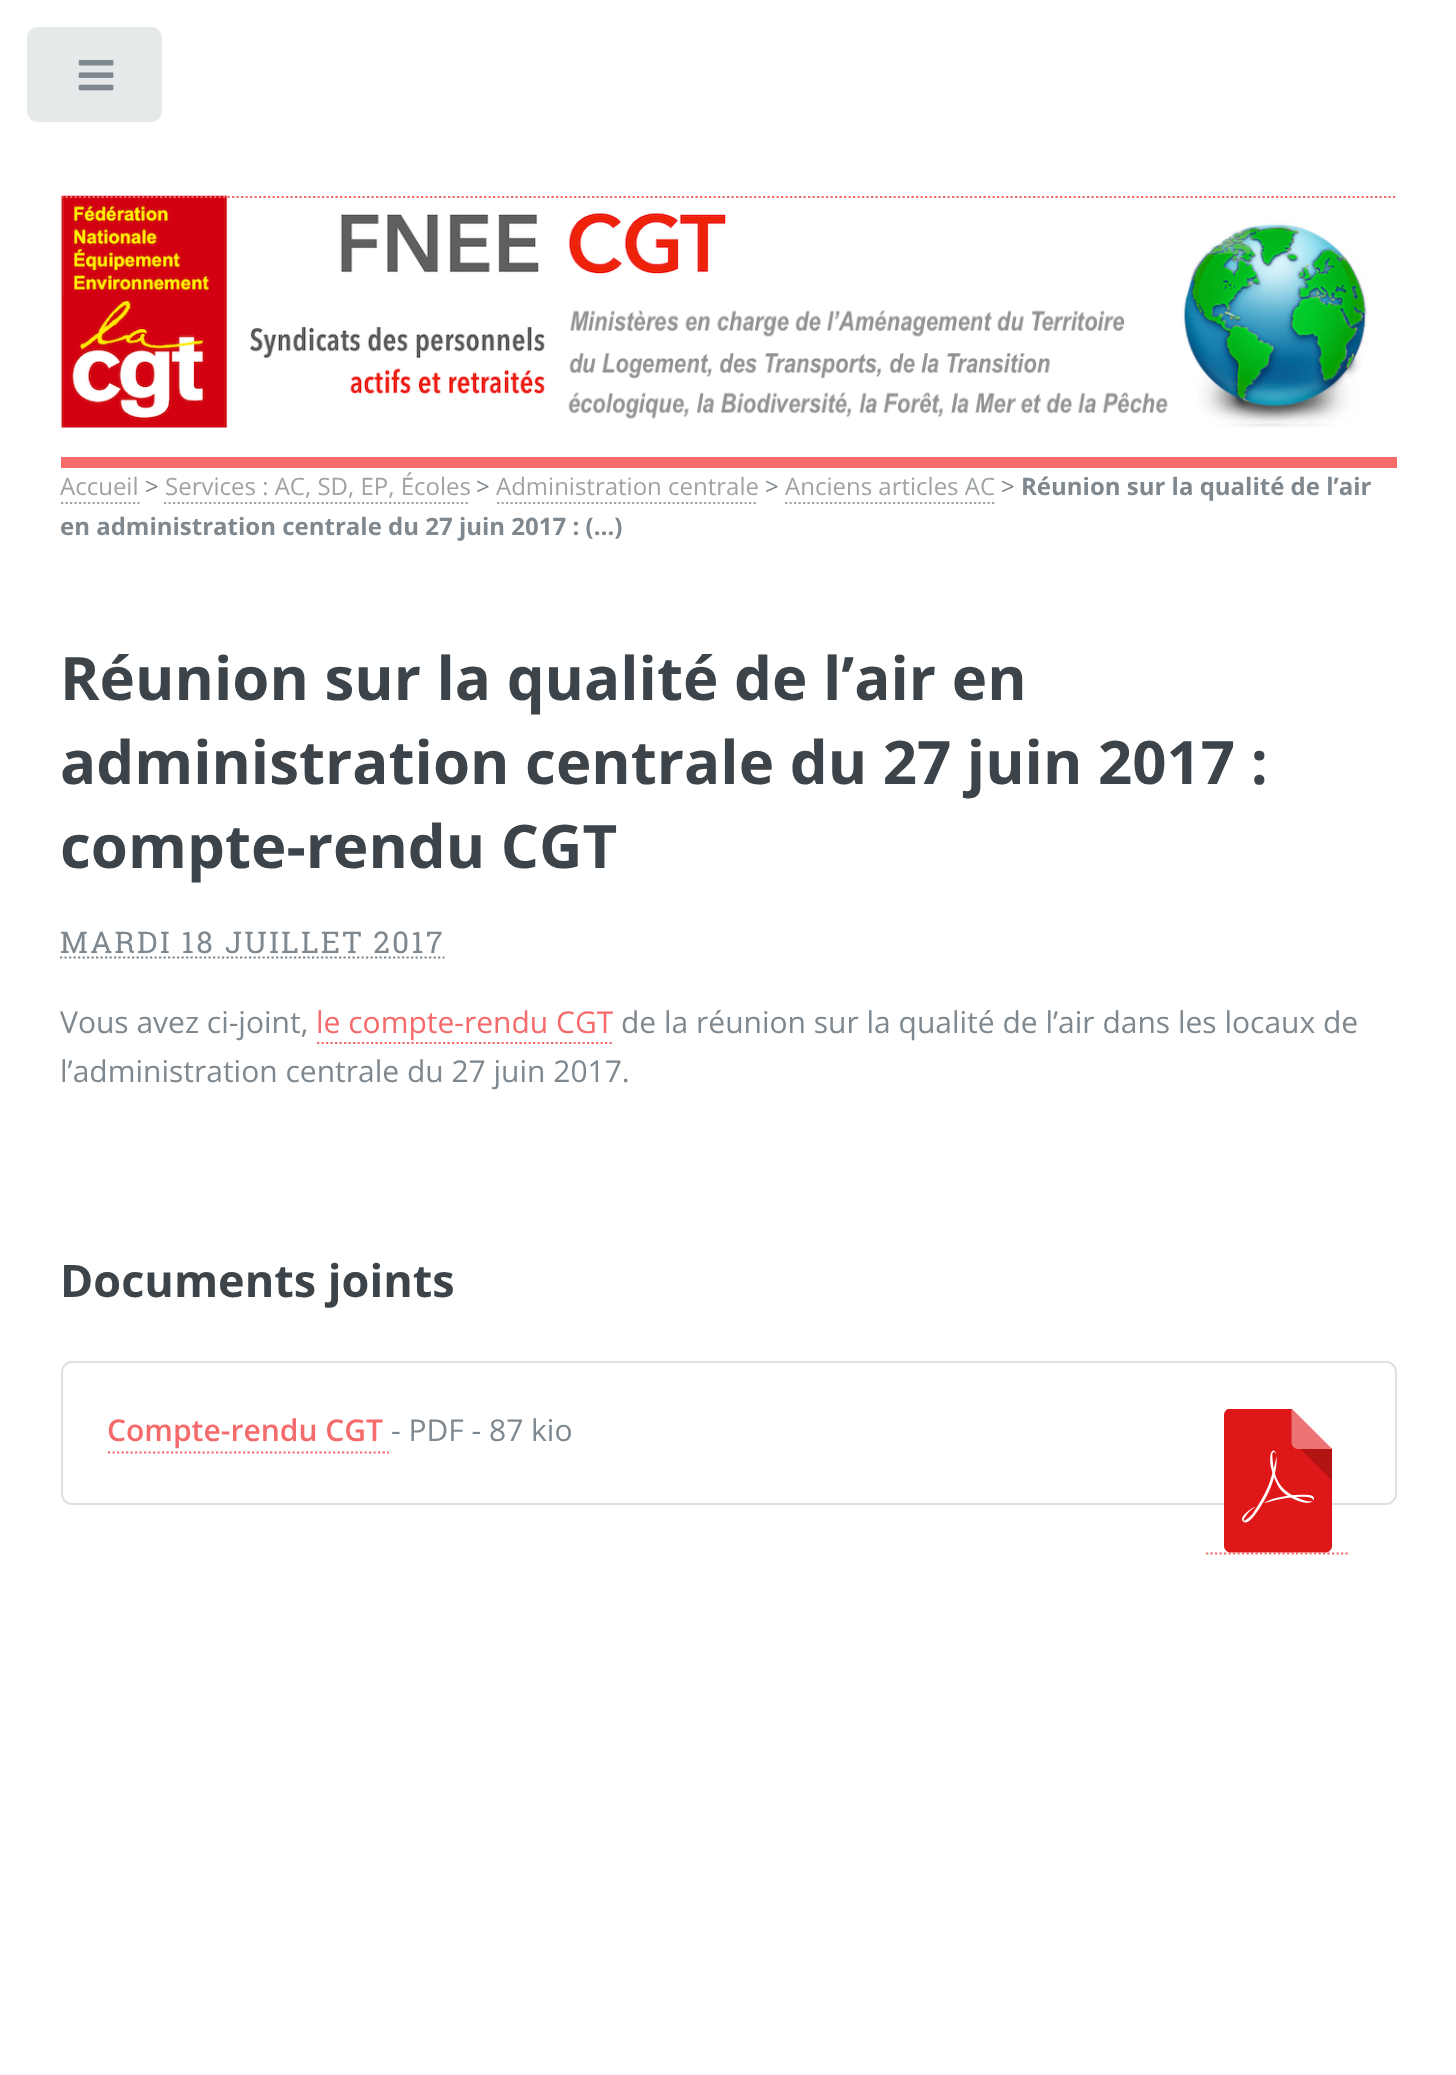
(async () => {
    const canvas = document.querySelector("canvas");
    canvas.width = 1456;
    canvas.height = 2075;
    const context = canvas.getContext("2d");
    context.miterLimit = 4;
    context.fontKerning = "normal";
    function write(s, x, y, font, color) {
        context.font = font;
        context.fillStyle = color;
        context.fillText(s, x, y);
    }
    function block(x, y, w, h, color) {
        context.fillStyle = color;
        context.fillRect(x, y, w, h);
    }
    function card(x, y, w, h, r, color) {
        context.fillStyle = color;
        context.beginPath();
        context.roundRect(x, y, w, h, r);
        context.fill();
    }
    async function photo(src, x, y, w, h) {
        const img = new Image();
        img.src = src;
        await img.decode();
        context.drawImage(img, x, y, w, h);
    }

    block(0, 0, 1456, 2075, "rgb(255, 255, 255)");
    card(27, 27, 135, 95, 11, "rgb(230, 233, 233)");
    await photo("media/1.png", 78, 60, 36, 31);
    block(61, 457, 1336, 11, "rgb(245, 106, 106)");
    await photo("media/2.png", 60, 195, 1308, 233);
    context.beginPath();
    context.moveTo(61, 197);
    context.lineTo(1397, 197);
    context.strokeStyle = "rgb(245, 106, 106)";
    context.lineWidth = 2.2;
    context.setLineDash([2.25, 2.25]);
    context.stroke();
    write("Accueil", 60, 495, "24px Open Sans", "rgb(159, 163, 166)");
    context.beginPath();
    context.moveTo(61, 503);
    context.lineTo(139.5, 503);
    context.strokeStyle = "rgb(159, 163, 166)";
    context.stroke();
    write(">", 145, 495, "24px Open Sans", "rgb(127, 136, 143)");
    write("Services : AC, SD, EP, Écoles", 165, 495, "24px Open Sans", "rgb(159, 163, 166)");
    context.beginPath();
    context.moveTo(164, 503);
    context.lineTo(470, 503);
    context.stroke();
    write(">", 476, 495, "24px Open Sans", "rgb(127, 136, 143)");
    write("Administration centrale", 496, 495, "24px Open Sans", "rgb(159, 163, 166)");
    context.beginPath();
    context.moveTo(497, 503);
    context.lineTo(758, 503);
    context.stroke();
    write(">", 765, 495, "24px Open Sans", "rgb(127, 136, 143)");
    write("Anciens articles AC", 785, 495, "24px Open Sans", "rgb(159, 163, 166)");
    context.beginPath();
    context.moveTo(785, 503);
    context.lineTo(994.5, 503);
    context.stroke();
    write(">", 1001, 495, "24px Open Sans", "rgb(127, 136, 143)");
    write("Réunion sur la qualité de l’air", 1021, 495, "bold 24px Open Sans", "rgb(127, 136, 143)");
    write("en administration centrale du 27 juin 2017 : (…)", 60, 535, "bold 24px Open Sans", "rgb(127, 136, 143)");
    write("Réunion sur la qualité de l’air en", 60, 700, "bold 60px Open Sans", "rgb(61, 68, 73)");
    write("administration centrale du 27 juin 2017 :", 60, 784, "bold 60px Open Sans", "rgb(61, 68, 73)");
    write("compte-rendu CGT", 60, 868, "bold 60px Open Sans", "rgb(61, 68, 73)");
    context.letterSpacing = "2.25px";
    write("MARDI 18 JUILLET 2017", 60, 953, "30px Roboto Slab", "rgb(127, 136, 143)");
    context.beginPath();
    context.moveTo(60, 957.5);
    context.lineTo(444.5, 957.5);
    context.strokeStyle = "rgb(127, 136, 143)";
    context.stroke();
    context.letterSpacing = "0px";
    write("Vous avez ci-joint,", 60, 1033, "30px Open Sans", "rgb(127, 136, 143)");
    write("le compte-rendu CGT", 316, 1033, "30px Open Sans", "rgb(245, 106, 106)");
    context.beginPath();
    context.moveTo(317, 1043);
    context.lineTo(614, 1043);
    context.strokeStyle = "rgb(245, 106, 106)";
    context.stroke();
    write("de la réunion sur la qualité de l’air dans les locaux de", 621, 1033, "30px Open Sans", "rgb(127, 136, 143)");
    write("l’administration centrale du 27 juin 2017.", 60, 1082, "30px Open Sans", "rgb(127, 136, 143)");
    write("Documents joints", 60, 1297, "bold 45px Open Sans", "rgb(61, 68, 73)");
    context.beginPath();
    context.roundRect(62, 1362, 1334, 142, 10);
    context.strokeStyle = "rgb(221, 225, 227)";
    context.lineWidth = 2;
    context.setLineDash([]);
    context.stroke();
    context.beginPath();
    context.moveTo(1206, 1553.5);
    context.lineTo(1350, 1553.5);
    context.strokeStyle = "rgb(245, 106, 106)";
    context.lineWidth = 2.2;
    context.setLineDash([2.25, 2.25]);
    context.stroke();
    context.beginPath();
    context.moveTo(108, 1452.5);
    context.lineTo(382.5, 1452.5);
    context.stroke();
    context.beginPath();
    context.moveTo(382.5, 1452.5);
    context.lineTo(385, 1452.5);
    context.moveTo(387, 1452.5);
    context.lineTo(389, 1452.5);
    context.setLineDash([]);
    context.stroke();
    write("Compte-rendu CGT", 107, 1441, "600 30px Open Sans", "rgb(245, 106, 106)");
    await photo("media/3.png", 1224, 1409, 108, 144);
    write("- PDF - 87 kio", 391, 1441, "30px Open Sans", "rgb(127, 136, 143)");
})();
